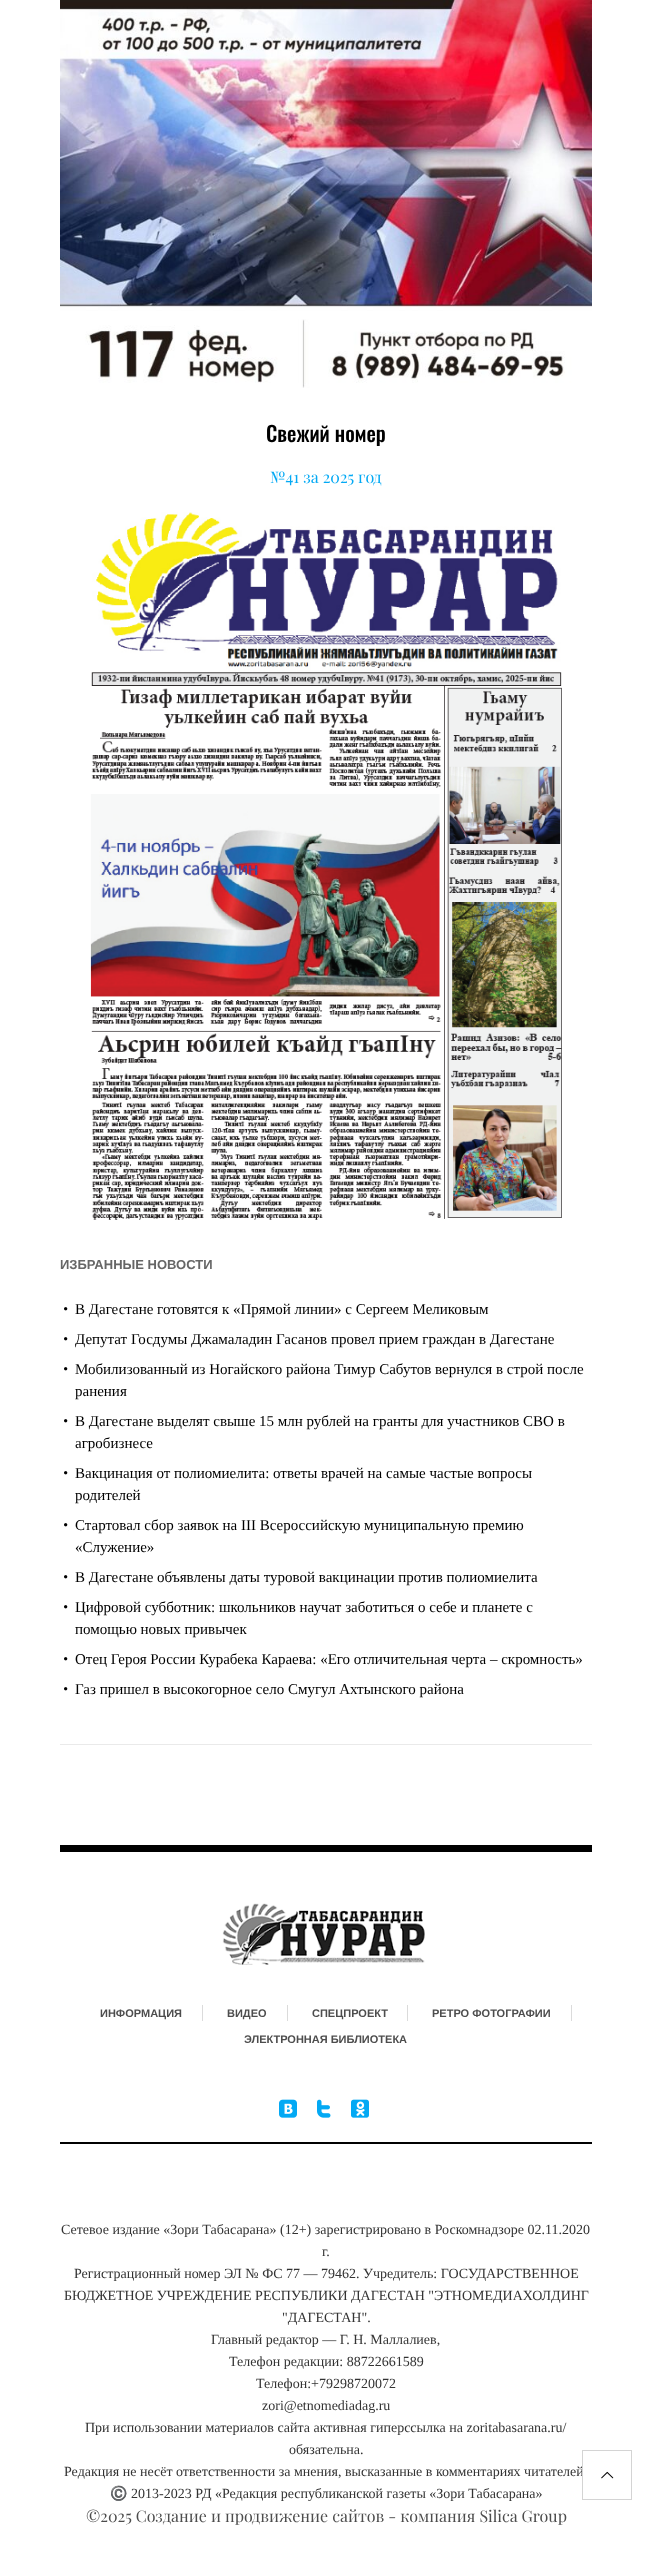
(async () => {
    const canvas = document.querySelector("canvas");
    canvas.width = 652;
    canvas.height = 2550;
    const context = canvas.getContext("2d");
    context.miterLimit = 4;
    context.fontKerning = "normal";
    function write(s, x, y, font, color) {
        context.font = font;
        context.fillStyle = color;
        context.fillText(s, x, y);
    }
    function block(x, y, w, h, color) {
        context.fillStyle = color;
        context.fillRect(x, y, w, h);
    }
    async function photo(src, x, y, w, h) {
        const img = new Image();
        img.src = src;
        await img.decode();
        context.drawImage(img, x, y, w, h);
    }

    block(0, 0, 652, 2550, "rgb(255, 255, 255)");
    await photo("media/1.png", 60, 0, 532, 388);
    write("Свежий номер", 266, 442, "500 21px Oswald", "rgb(0, 0, 0)");
    write("№41 за 2025 год", 270, 483, "16px Playfair Display", "rgb(3, 169, 244)");
    await photo("media/2.png", 90, 512, 472, 708);
    write("ИЗБРАННЫЕ НОВОСТИ", 60, 1269, "bold 13px Liberation Sans", "rgb(102, 102, 102)");
    await photo("media/3.png", 64, 1307, 4, 4);
    write("В Дагестане готовятся к «Прямой линии» с Сергеем Меликовым", 75, 1314, "15px Liberation Serif", "rgb(0, 0, 0)");
    await photo("media/3.png", 64, 1337, 4, 4);
    write("Депутат Госдумы Джамаладин Гасанов провел прием граждан в Дагестане", 75, 1344, "15px Liberation Serif", "rgb(0, 0, 0)");
    await photo("media/3.png", 64, 1367, 4, 4);
    write("Мобилизованный из Ногайского района Тимур Сабутов вернулся в строй после", 75, 1374, "15px Liberation Serif", "rgb(0, 0, 0)");
    write("ранения", 75, 1396, "15px Liberation Serif", "rgb(0, 0, 0)");
    await photo("media/3.png", 64, 1419, 4, 4);
    write("В Дагестане выделят свыше 15 млн рублей на гранты для участников СВО в", 75, 1426, "15px Liberation Serif", "rgb(0, 0, 0)");
    write("агробизнесе", 75, 1448, "15px Liberation Serif", "rgb(0, 0, 0)");
    await photo("media/3.png", 64, 1471, 4, 4);
    write("Вакцинация от полиомиелита: ответы врачей на самые частые вопросы", 75, 1478, "15px Liberation Serif", "rgb(0, 0, 0)");
    write("родителей", 75, 1500, "15px Liberation Serif", "rgb(0, 0, 0)");
    await photo("media/3.png", 64, 1523, 4, 4);
    write("Стартовал сбор заявок на III Всероссийскую муниципальную премию", 75, 1530, "15px Liberation Serif", "rgb(0, 0, 0)");
    write("«Служение»", 75, 1552, "15px Liberation Serif", "rgb(0, 0, 0)");
    await photo("media/3.png", 64, 1575, 4, 4);
    write("В Дагестане объявлены даты туровой вакцинации против полиомиелита", 75, 1582, "15px Liberation Serif", "rgb(0, 0, 0)");
    await photo("media/3.png", 64, 1605, 4, 4);
    write("Цифровой субботник: школьников научат заботиться о себе и планете с", 75, 1612, "15px Liberation Serif", "rgb(0, 0, 0)");
    write("помощью новых привычек", 75, 1634, "15px Liberation Serif", "rgb(0, 0, 0)");
    await photo("media/3.png", 64, 1657, 4, 4);
    write("Отец Героя России Курабека Караева: «Его отличительная черта – скромность»", 75, 1664, "15px Liberation Serif", "rgb(0, 0, 0)");
    await photo("media/3.png", 64, 1687, 4, 4);
    write("Газ пришел в высокогорное село Смугул Ахтынского района", 75, 1694, "15px Liberation Serif", "rgb(0, 0, 0)");
    block(60, 1744, 532, 1, "rgb(234, 234, 234)");
    write("Редакция не несёт ответственности за мнения, высказанные в комментариях читателей", 64, 2476, "14px Liberation Serif", "rgb(51, 51, 51)");
    block(583, 2469, 1, 7, "rgb(255, 255, 255)");
    context.strokeStyle = "rgb(212, 212, 212)";
    context.strokeRect(582.5, 2450.5, 49, 49);
    await photo("media/4.png", 601, 2471, 13, 8);
    block(60, 1845, 532, 7, "rgb(0, 0, 0)");
    await photo("media/5.png", 222, 1903, 203, 62);
    write("ИНФОРМАЦИЯ", 100, 2017, "bold 11px Liberation Sans", "rgb(77, 77, 77)");
    block(202, 2005, 1, 16, "rgb(219, 219, 219)");
    write("ВИДЕО", 227, 2017, "bold 11px Liberation Sans", "rgb(77, 77, 77)");
    block(287, 2005, 1, 16, "rgb(219, 219, 219)");
    write("СПЕЦПРОЕКТ", 312, 2017, "bold 11px Liberation Sans", "rgb(77, 77, 77)");
    block(407, 2005, 1, 16, "rgb(219, 219, 219)");
    write("РЕТРО ФОТОГРАФИИ", 432, 2017, "bold 11px Liberation Sans", "rgb(77, 77, 77)");
    block(571, 2005, 1, 16, "rgb(219, 219, 219)");
    write("ЭЛЕКТРОННАЯ БИБЛИОТЕКА", 244, 2043, "bold 11px Liberation Sans", "rgb(77, 77, 77)");
    await photo("media/6.png", 279, 2099, 18, 19);
    await photo("media/7.png", 317, 2099, 14, 19);
    await photo("media/8.png", 351, 2099, 18, 19);
    block(60, 2142, 532, 2, "rgb(0, 0, 0)");
    write("Сетевое издание «Зори Табасарана» (12+) зарегистрировано в Роскомнадзоре 02.11.2020", 61, 2234, "14px Liberation Serif", "rgb(51, 51, 51)");
    write("г.", 322, 2256, "14px Liberation Serif", "rgb(51, 51, 51)");
    write("Регистрационный номер ЭЛ № ФС 77 — 79462. Учредитель: ГОСУДАРСТВЕННОЕ", 74, 2278, "14px Liberation Serif", "rgb(51, 51, 51)");
    write("БЮДЖЕТНОЕ УЧРЕЖДЕНИЕ РЕСПУБЛИКИ ДАГЕСТАН \"ЭТНОМЕДИАХОЛДИНГ", 64, 2300, "14px Liberation Serif", "rgb(51, 51, 51)");
    write("\"ДАГЕСТАН\".", 282, 2322, "14px Liberation Serif", "rgb(51, 51, 51)");
    write("Главный редактор — Г. Н. Маллалиев,", 211, 2344, "14px Liberation Serif", "rgb(51, 51, 51)");
    write("Телефон редакции: 88722661589", 229, 2366, "14px Liberation Serif", "rgb(51, 51, 51)");
    write("Телефон:+79298720072", 256, 2388, "14px Liberation Serif", "rgb(51, 51, 51)");
    write("zori@etnomediadag.ru", 262, 2410, "14px Liberation Serif", "rgb(51, 51, 51)");
    write("При использовании материалов сайта активная гиперссылка на zoritabasarana.ru/", 85, 2432, "14px Liberation Serif", "rgb(51, 51, 51)");
    write("обязательна.", 289, 2454, "14px Liberation Serif", "rgb(51, 51, 51)");
    write("©️", 110, 2498, "14px Noto Color Emoji", "rgb(51, 51, 51)");
    write("2013-2023 РД «Редакция республиканской газеты «Зори Табасарана»", 131, 2498, "14px Liberation Serif", "rgb(51, 51, 51)");
    write("©2025 Создание и продвижение сайтов - компания Silica Group", 86, 2522, "16px Playfair Display", "rgb(77, 77, 77)");
})();
